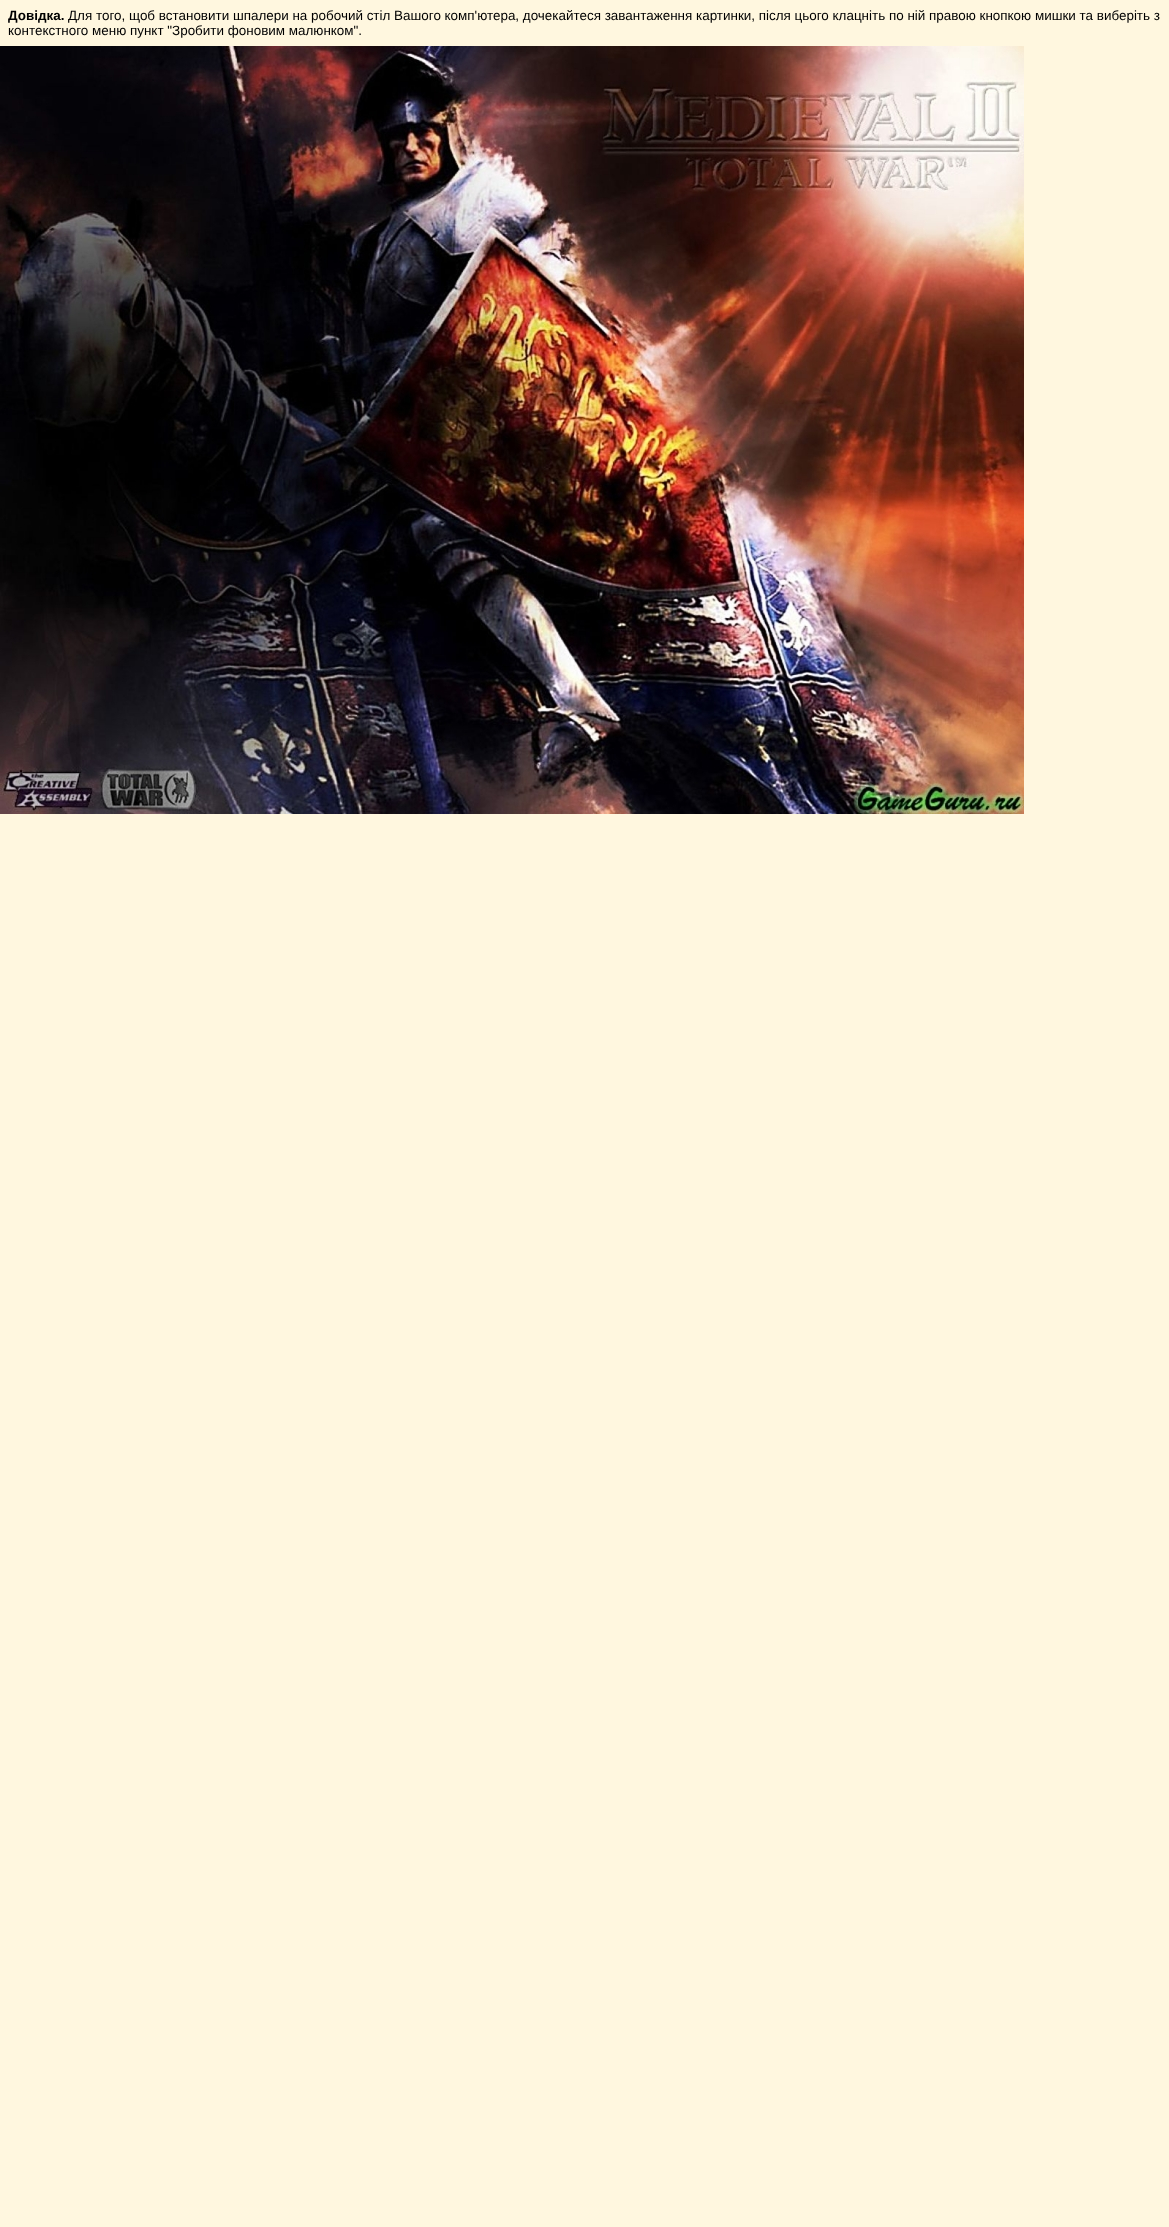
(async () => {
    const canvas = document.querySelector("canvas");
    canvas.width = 1169;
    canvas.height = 2227;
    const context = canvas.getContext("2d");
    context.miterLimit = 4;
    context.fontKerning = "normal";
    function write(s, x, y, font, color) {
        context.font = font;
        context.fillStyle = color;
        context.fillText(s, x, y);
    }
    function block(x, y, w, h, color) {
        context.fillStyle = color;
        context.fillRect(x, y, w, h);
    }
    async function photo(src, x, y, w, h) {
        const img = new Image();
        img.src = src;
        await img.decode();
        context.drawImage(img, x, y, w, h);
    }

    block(0, 0, 1169, 2227, "rgb(255, 247, 223)");
    write("Довідка.", 8, 20, "bold 13.45px Liberation Sans", "rgb(0, 0, 0)");
    write("Для того, щоб встановити шпалери на робочий стіл Вашого комп'ютера, дочекайтеся завантаження картинки, після цього клацніть по ній правою кнопкою мишки та виберіть з", 68, 20, "13.45px Liberation Sans", "rgb(0, 0, 0)");
    write("контекстного меню пункт \"Зробити фоновим малюнком\".", 8, 35, "13.45px Liberation Sans", "rgb(0, 0, 0)");
    await photo("media/1.png", 0, 46, 1024, 768);
})();
